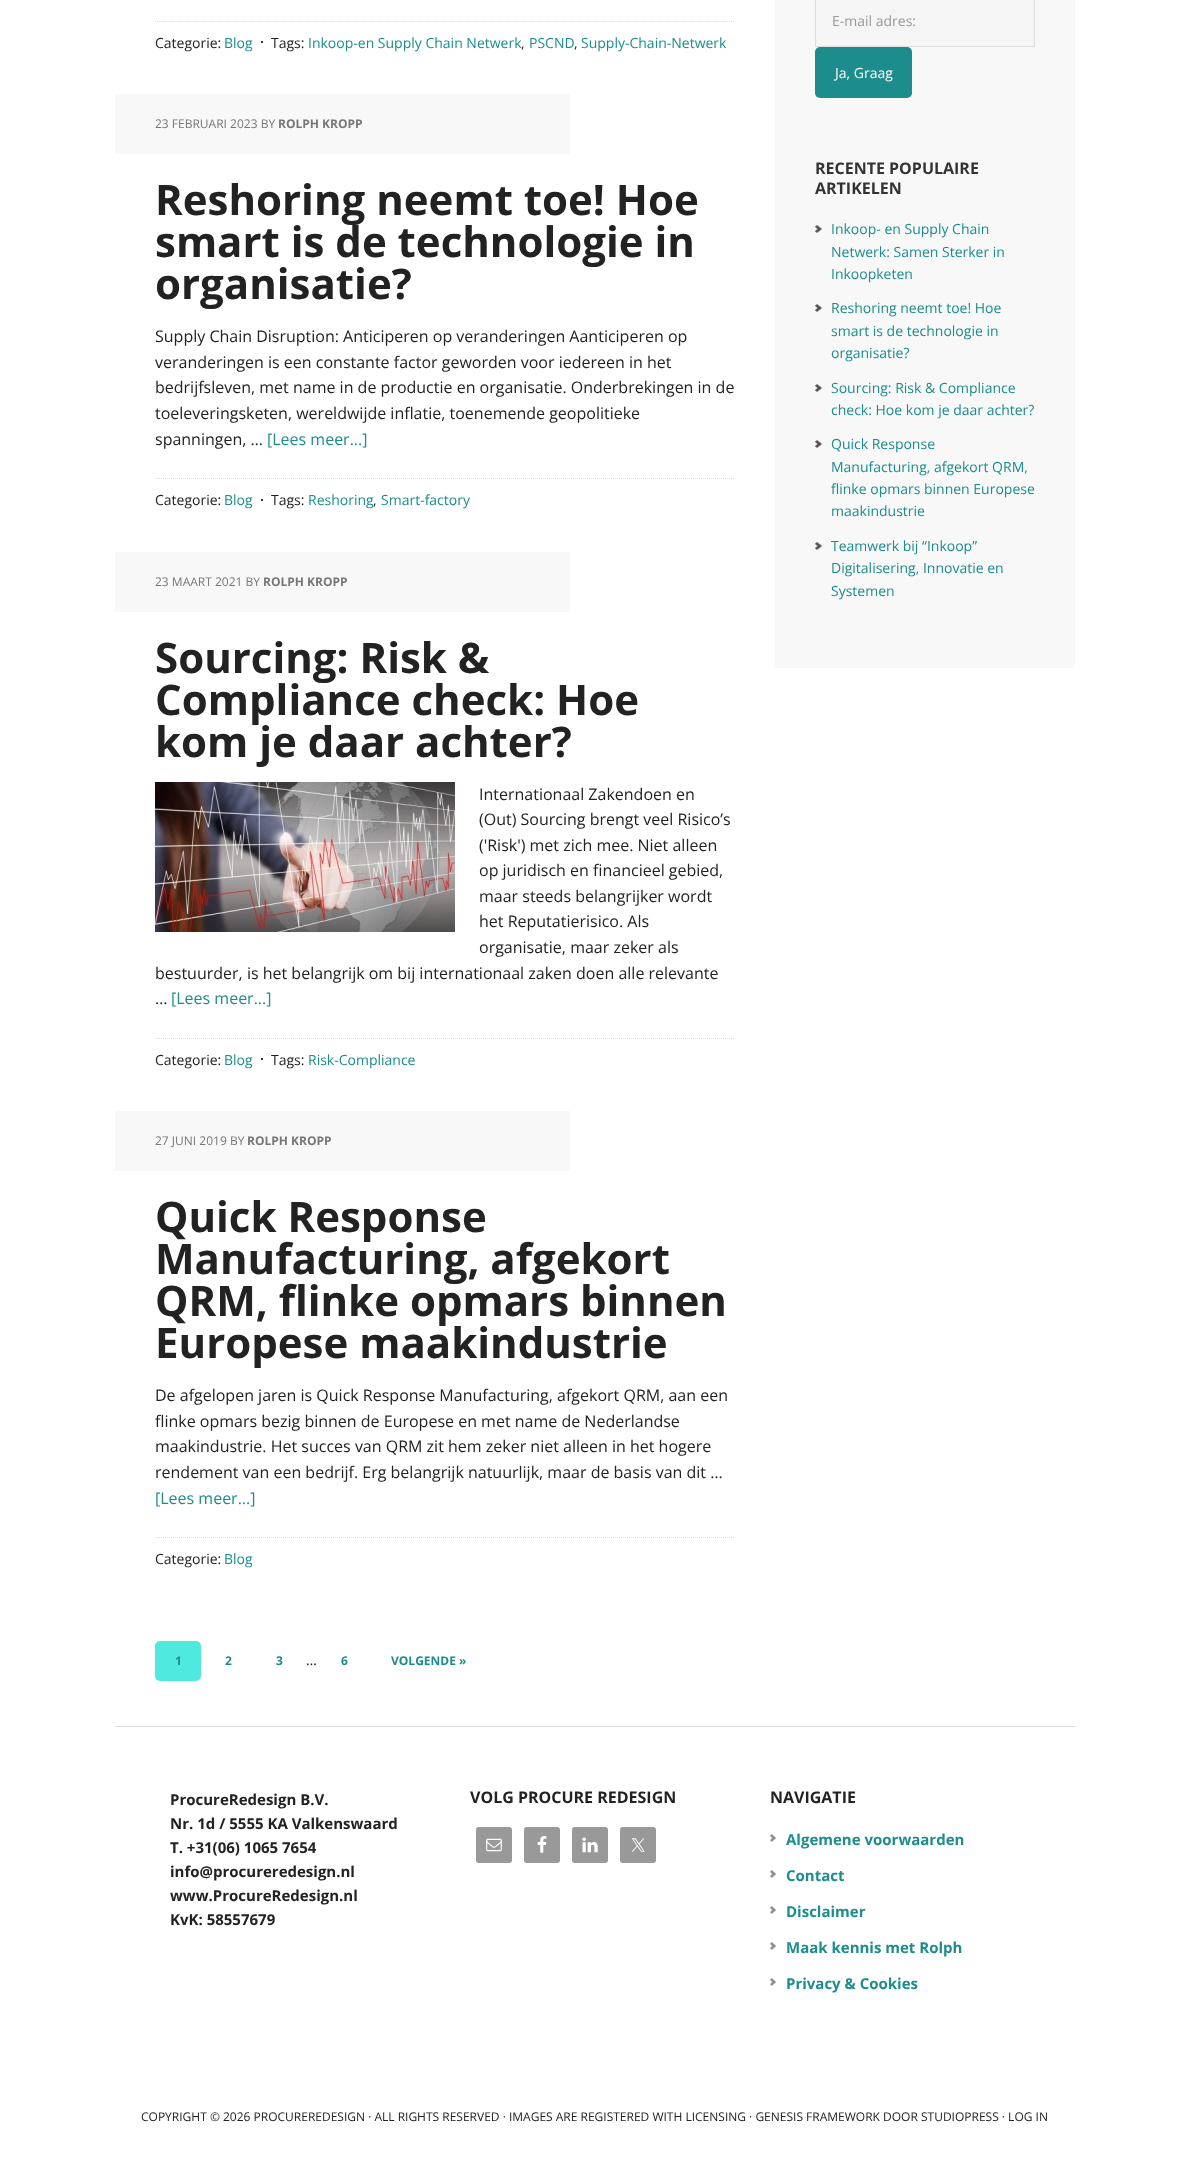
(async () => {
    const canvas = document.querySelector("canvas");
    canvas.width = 1189;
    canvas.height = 2166;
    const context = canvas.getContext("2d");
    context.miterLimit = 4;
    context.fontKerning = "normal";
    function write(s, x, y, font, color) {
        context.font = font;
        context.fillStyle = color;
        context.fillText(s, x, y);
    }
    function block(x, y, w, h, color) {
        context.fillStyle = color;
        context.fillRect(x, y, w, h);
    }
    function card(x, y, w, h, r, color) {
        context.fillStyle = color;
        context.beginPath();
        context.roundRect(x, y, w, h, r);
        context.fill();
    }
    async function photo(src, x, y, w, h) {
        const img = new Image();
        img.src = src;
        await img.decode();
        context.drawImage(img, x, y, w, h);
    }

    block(0, 0, 1189, 2166, "rgb(255, 255, 255)");
    context.beginPath();
    context.moveTo(155, 21.5);
    context.lineTo(735, 21.5);
    context.strokeStyle = "rgb(221, 221, 221)";
    context.setLineDash([1, 1]);
    context.stroke();
    write("Categorie:", 155, 48, "14px Open Sans", "rgb(34, 34, 34)");
    write("Blog", 224, 48, "14px Open Sans", "rgb(28, 140, 140)");
    write("Tags:", 271, 48, "14px Open Sans", "rgb(34, 34, 34)");
    block(261, 41, 2, 2, "rgb(51, 51, 51)");
    write("Inkoop-en Supply Chain Netwerk", 308, 48, "14px Open Sans", "rgb(28, 140, 140)");
    write(",", 521, 48, "14px Open Sans", "rgb(34, 34, 34)");
    write("PSCND", 529, 48, "14px Open Sans", "rgb(28, 140, 140)");
    write(",", 574, 48, "14px Open Sans", "rgb(34, 34, 34)");
    write("Supply-Chain-Netwerk", 581, 48, "14px Open Sans", "rgb(28, 140, 140)");
    block(115, 94, 455, 60, "rgb(248, 248, 248)");
    write("23 FEBRUARI 2023 BY", 155, 128, "12px Open Sans", "rgb(119, 119, 119)");
    write("ROLPH KROPP", 278, 128, "bold 12px Open Sans", "rgb(119, 119, 119)");
    write("Reshoring neemt toe! Hoe", 155, 215, "bold 42px Open Sans", "rgb(34, 34, 34)");
    write("smart is de technologie in", 155, 257, "bold 42px Open Sans", "rgb(34, 34, 34)");
    write("organisatie?", 155, 299, "bold 42px Open Sans", "rgb(34, 34, 34)");
    write("Supply Chain Disruption: Anticiperen op veranderingen Aanticiperen op", 155, 342, "16px Open Sans", "rgb(34, 34, 34)");
    write("veranderingen is een constante factor geworden voor iedereen in het", 155, 368, "16px Open Sans", "rgb(34, 34, 34)");
    write("bedrijfsleven, met name in de productie en organisatie. Onderbrekingen in de", 155, 393, "16px Open Sans", "rgb(34, 34, 34)");
    write("toeleveringsketen, wereldwijde inflatie, toenemende geopolitieke", 155, 419, "16px Open Sans", "rgb(34, 34, 34)");
    write("spanningen, …", 155, 445, "16px Open Sans", "rgb(34, 34, 34)");
    write("[Lees meer...]", 267, 445, "16px Open Sans", "rgb(28, 140, 140)");
    context.beginPath();
    context.moveTo(155, 478.5);
    context.lineTo(735, 478.5);
    context.stroke();
    write("Categorie:", 155, 505, "14px Open Sans", "rgb(34, 34, 34)");
    write("Blog", 224, 505, "14px Open Sans", "rgb(28, 140, 140)");
    write("Tags:", 271, 505, "14px Open Sans", "rgb(34, 34, 34)");
    block(261, 499, 2, 2, "rgb(51, 51, 51)");
    write("Reshoring", 308, 505, "14px Open Sans", "rgb(28, 140, 140)");
    write(",", 373, 505, "14px Open Sans", "rgb(34, 34, 34)");
    write("Smart-factory", 381, 505, "14px Open Sans", "rgb(28, 140, 140)");
    block(115, 552, 455, 60, "rgb(248, 248, 248)");
    write("23 MAART 2021 BY", 155, 586, "12px Open Sans", "rgb(119, 119, 119)");
    write("ROLPH KROPP", 263, 586, "bold 12px Open Sans", "rgb(119, 119, 119)");
    write("Sourcing: Risk &", 155, 673, "bold 42px Open Sans", "rgb(34, 34, 34)");
    write("Compliance check: Hoe", 155, 715, "bold 42px Open Sans", "rgb(34, 34, 34)");
    write("kom je daar achter?", 155, 757, "bold 42px Open Sans", "rgb(34, 34, 34)");
    await photo("media/1.png", 155, 782, 300, 150);
    write("Internationaal Zakendoen en", 479, 800, "16px Open Sans", "rgb(34, 34, 34)");
    write("(Out) Sourcing brengt veel Risico’s", 479, 825, "16px Open Sans", "rgb(34, 34, 34)");
    write("('Risk') met zich mee. Niet alleen", 479, 851, "16px Open Sans", "rgb(34, 34, 34)");
    write("op juridisch en financieel gebied,", 479, 876, "16px Open Sans", "rgb(34, 34, 34)");
    write("maar steeds belangrijker wordt", 479, 902, "16px Open Sans", "rgb(34, 34, 34)");
    write("het Reputatierisico. Als", 479, 927, "16px Open Sans", "rgb(34, 34, 34)");
    write("organisatie, maar zeker als", 479, 953, "16px Open Sans", "rgb(34, 34, 34)");
    write("bestuurder, is het belangrijk om bij internationaal zaken doen alle relevante", 155, 979, "16px Open Sans", "rgb(34, 34, 34)");
    write("…", 155, 1004, "16px Open Sans", "rgb(34, 34, 34)");
    write("[Lees meer...]", 171, 1004, "16px Open Sans", "rgb(28, 140, 140)");
    context.beginPath();
    context.moveTo(155, 1038.5);
    context.lineTo(735, 1038.5);
    context.stroke();
    write("Categorie:", 155, 1065, "14px Open Sans", "rgb(34, 34, 34)");
    write("Blog", 224, 1065, "14px Open Sans", "rgb(28, 140, 140)");
    write("Tags:", 271, 1065, "14px Open Sans", "rgb(34, 34, 34)");
    block(261, 1058, 2, 2, "rgb(51, 51, 51)");
    write("Risk-Compliance", 308, 1065, "14px Open Sans", "rgb(28, 140, 140)");
    block(115, 1111, 455, 60, "rgb(248, 248, 248)");
    write("27 JUNI 2019 BY", 155, 1145, "12px Open Sans", "rgb(119, 119, 119)");
    write("ROLPH KROPP", 247, 1145, "bold 12px Open Sans", "rgb(119, 119, 119)");
    write("Quick Response", 155, 1232, "bold 42px Open Sans", "rgb(34, 34, 34)");
    write("Manufacturing, afgekort", 155, 1274, "bold 42px Open Sans", "rgb(34, 34, 34)");
    write("QRM, flinke opmars binnen", 155, 1316, "bold 42px Open Sans", "rgb(34, 34, 34)");
    write("Europese maakindustrie", 155, 1358, "bold 42px Open Sans", "rgb(34, 34, 34)");
    write("De afgelopen jaren is Quick Response Manufacturing, afgekort QRM, aan een", 155, 1401, "16px Open Sans", "rgb(34, 34, 34)");
    write("flinke opmars bezig binnen de Europese en met name de Nederlandse", 155, 1427, "16px Open Sans", "rgb(34, 34, 34)");
    write("maakindustrie. Het succes van QRM zit hem zeker niet alleen in het hogere", 155, 1452, "16px Open Sans", "rgb(34, 34, 34)");
    write("rendement van een bedrijf. Erg belangrijk natuurlijk, maar de basis van dit …", 155, 1478, "16px Open Sans", "rgb(34, 34, 34)");
    write("[Lees meer...]", 155, 1504, "16px Open Sans", "rgb(28, 140, 140)");
    context.beginPath();
    context.moveTo(155, 1537.5);
    context.lineTo(735, 1537.5);
    context.stroke();
    write("Categorie:", 155, 1564, "14px Open Sans", "rgb(34, 34, 34)");
    write("Blog", 224, 1564, "14px Open Sans", "rgb(28, 140, 140)");
    card(155, 1641, 46, 40, 5, "rgb(80, 233, 223)");
    write("1", 175, 1665, "bold 12px Open Sans", "rgb(28, 140, 140)");
    write("2", 225, 1665, "bold 12px Open Sans", "rgb(28, 140, 140)");
    write("3", 276, 1665, "bold 12px Open Sans", "rgb(28, 140, 140)");
    write("…", 306, 1665, "14px Open Sans", "rgb(34, 34, 34)");
    write("6", 341, 1665, "bold 12px Open Sans", "rgb(28, 140, 140)");
    write("VOLGENDE »", 391, 1665, "bold 12px Open Sans", "rgb(28, 140, 140)");
    block(775, 0, 300, 668, "rgb(248, 248, 248)");
    context.fillStyle = "rgb(245, 245, 245)";
    context.beginPath();
    context.rect(815.5, -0.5, 219, 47);
    context.fill();
    context.setLineDash([]);
    context.stroke();
    write("E-mail adres:", 832, 26, "14px Open Sans", "rgb(153, 153, 153)");
    card(815, 47, 97, 51, 5, "rgb(28, 140, 140)");
    write("Ja, Graag", 835, 78, "14px Open Sans", "rgb(255, 255, 255)");
    write("RECENTE POPULAIRE", 815, 174, "bold 16px Open Sans", "rgb(51, 51, 51)");
    write("ARTIKELEN", 815, 194, "bold 16px Open Sans", "rgb(51, 51, 51)");
    await photo("media/2.png", 815, 225, 7, 8);
    write("Inkoop- en Supply Chain", 831, 234, "14px Open Sans", "rgb(28, 140, 140)");
    write("Netwerk: Samen Sterker in", 831, 257, "14px Open Sans", "rgb(28, 140, 140)");
    write("Inkoopketen", 831, 279, "14px Open Sans", "rgb(28, 140, 140)");
    await photo("media/2.png", 815, 304, 7, 8);
    write("Reshoring neemt toe! Hoe", 831, 313, "14px Open Sans", "rgb(28, 140, 140)");
    write("smart is de technologie in", 831, 336, "14px Open Sans", "rgb(28, 140, 140)");
    write("organisatie?", 831, 358, "14px Open Sans", "rgb(28, 140, 140)");
    await photo("media/2.png", 815, 384, 7, 8);
    write("Sourcing: Risk & Compliance", 831, 393, "14px Open Sans", "rgb(28, 140, 140)");
    write("check: Hoe kom je daar achter?", 831, 415, "14px Open Sans", "rgb(28, 140, 140)");
    await photo("media/2.png", 815, 440, 7, 8);
    write("Quick Response", 831, 449, "14px Open Sans", "rgb(28, 140, 140)");
    write("Manufacturing, afgekort QRM,", 831, 472, "14px Open Sans", "rgb(28, 140, 140)");
    write("flinke opmars binnen Europese", 831, 494, "14px Open Sans", "rgb(28, 140, 140)");
    write("maakindustrie", 831, 516, "14px Open Sans", "rgb(28, 140, 140)");
    await photo("media/2.png", 815, 542, 7, 8);
    write("Teamwerk bij “Inkoop”", 831, 551, "14px Open Sans", "rgb(28, 140, 140)");
    write("Digitalisering, Innovatie en", 831, 573, "14px Open Sans", "rgb(28, 140, 140)");
    write("Systemen", 831, 596, "14px Open Sans", "rgb(28, 140, 140)");
    block(115, 1726, 960, 1, "rgb(221, 221, 221)");
    write("ProcureRedesign B.V.", 170, 1805, "bold 15px Open Sans", "rgb(34, 34, 34)");
    write("Nr. 1d / 5555 KA Valkenswaard", 170, 1829, "bold 15px Open Sans", "rgb(34, 34, 34)");
    write("T. +31(06) 1065 7654", 170, 1853, "bold 15px Open Sans", "rgb(34, 34, 34)");
    write("info@procureredesign.nl", 170, 1877, "bold 15px Open Sans", "rgb(34, 34, 34)");
    write("www.ProcureRedesign.nl", 170, 1901, "bold 15px Open Sans", "rgb(34, 34, 34)");
    write("KvK: 58557679", 170, 1925, "bold 15px Open Sans", "rgb(34, 34, 34)");
    write("VOLG PROCURE REDESIGN", 470, 1803, "bold 16px Open Sans", "rgb(34, 34, 34)");
    card(476, 1827, 36, 36, 3, "rgb(153, 153, 153)");
    await photo("media/3.png", 486, 1838, 16, 14);
    card(524, 1827, 36, 36, 3, "rgb(153, 153, 153)");
    await photo("media/4.png", 537, 1836, 10, 17);
    card(572, 1827, 36, 36, 3, "rgb(153, 153, 153)");
    await photo("media/5.png", 582, 1837, 16, 16);
    card(620, 1827, 36, 36, 3, "rgb(153, 153, 153)");
    await photo("media/6.png", 631, 1838, 14, 14);
    write("NAVIGATIE", 770, 1803, "bold 16px Open Sans", "rgb(34, 34, 34)");
    await photo("media/7.png", 770, 1834, 6, 8);
    write("Algemene voorwaarden", 786, 1845, "bold 15px Open Sans", "rgb(28, 140, 140)");
    await photo("media/7.png", 770, 1870, 6, 8);
    write("Contact", 786, 1881, "bold 15px Open Sans", "rgb(28, 140, 140)");
    await photo("media/7.png", 770, 1906, 6, 8);
    write("Disclaimer", 786, 1917, "bold 15px Open Sans", "rgb(28, 140, 140)");
    await photo("media/7.png", 770, 1942, 6, 8);
    write("Maak kennis met Rolph", 786, 1953, "bold 15px Open Sans", "rgb(28, 140, 140)");
    await photo("media/7.png", 770, 1978, 6, 8);
    write("Privacy & Cookies", 786, 1989, "bold 15px Open Sans", "rgb(28, 140, 140)");
    write("COPYRIGHT © 2026 PROCUREREDESIGN · ALL RIGHTS RESERVED · IMAGES ARE REGISTERED WITH LICENSING · GENESIS FRAMEWORK DOOR STUDIOPRESS · LOG IN", 141, 2121, "12px Open Sans", "rgb(34, 34, 34)");
})();
